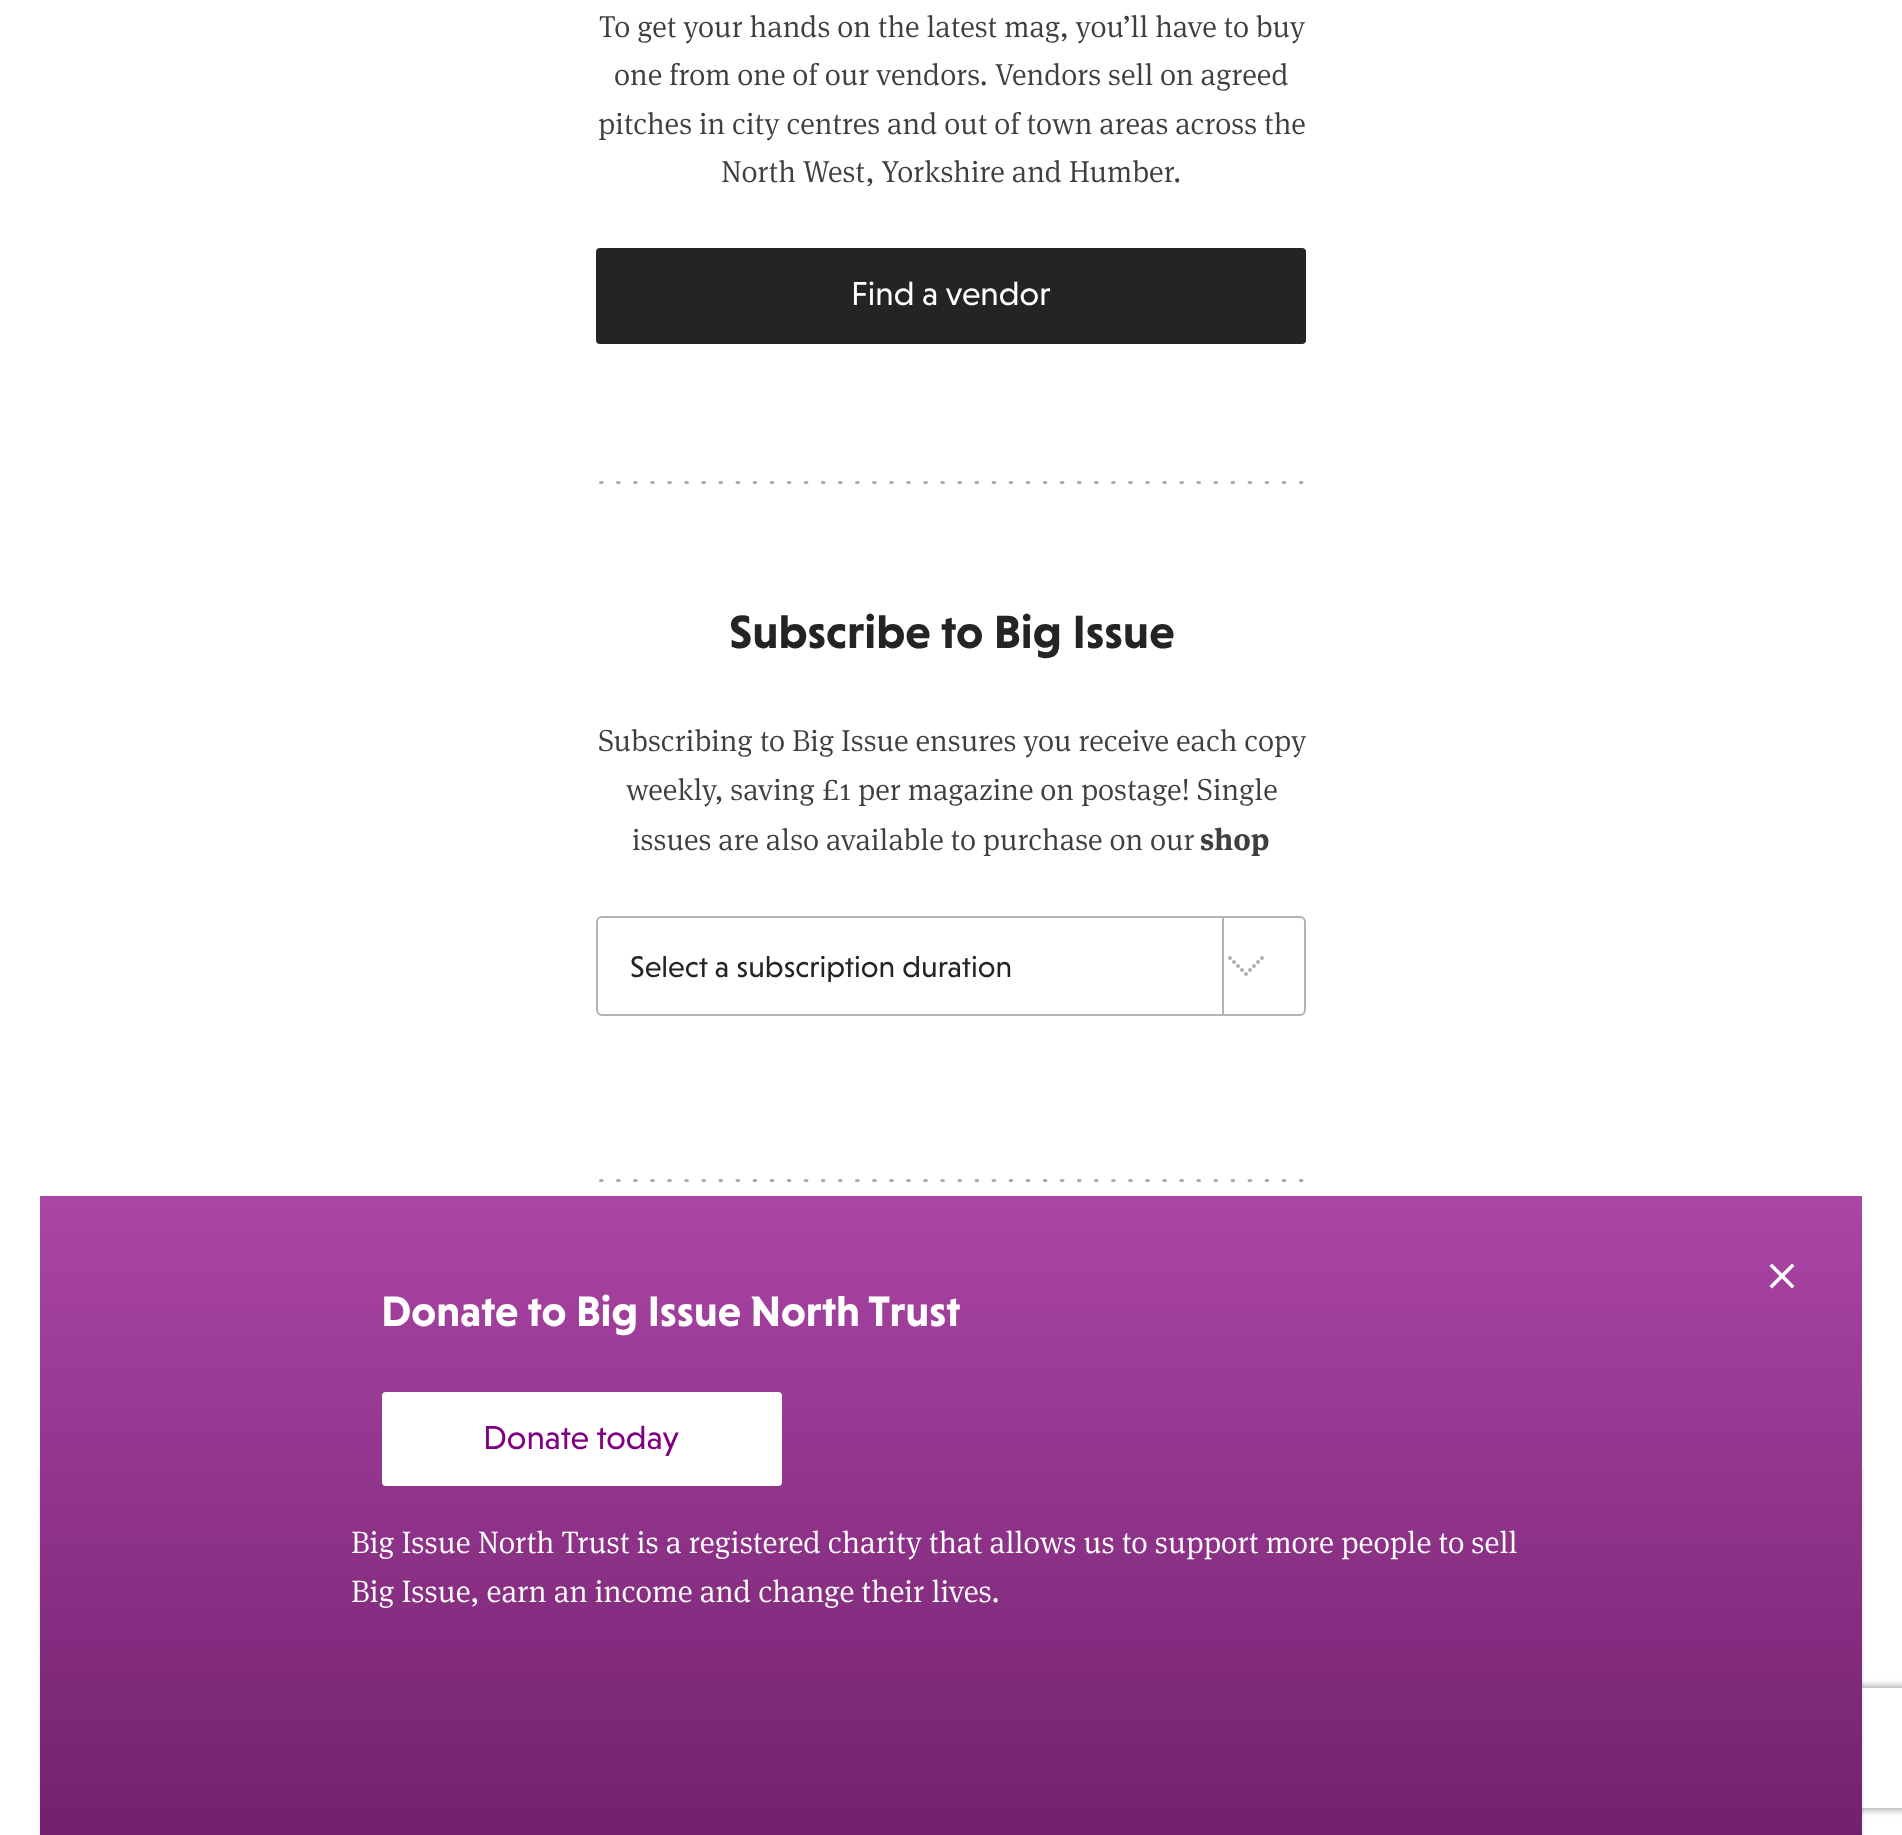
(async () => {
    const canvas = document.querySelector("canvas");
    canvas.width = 1902;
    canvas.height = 1835;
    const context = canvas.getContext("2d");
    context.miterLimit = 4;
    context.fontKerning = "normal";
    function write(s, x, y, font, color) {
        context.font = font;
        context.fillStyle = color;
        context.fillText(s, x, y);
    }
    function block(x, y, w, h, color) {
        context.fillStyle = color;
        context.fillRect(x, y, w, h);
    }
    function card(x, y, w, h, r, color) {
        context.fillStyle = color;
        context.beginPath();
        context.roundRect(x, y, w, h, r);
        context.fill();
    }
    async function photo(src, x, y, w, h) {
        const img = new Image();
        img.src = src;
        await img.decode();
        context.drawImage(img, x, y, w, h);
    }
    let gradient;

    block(0, 0, 1902, 1835, "rgb(255, 255, 255)");
    write("To get your hands on the latest mag, you’ll have to buy", 599, 37, "300 30.5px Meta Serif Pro", "rgb(63, 63, 63)");
    write("one from one of our vendors. Vendors sell on agreed", 614, 85, "300 30.5px Meta Serif Pro", "rgb(63, 63, 63)");
    write("pitches in city centres and out of town areas across the", 598, 134, "300 30.5px Meta Serif Pro", "rgb(63, 63, 63)");
    write("North West, Yorkshire and Humber.", 721, 182, "300 30.5px Meta Serif Pro", "rgb(63, 63, 63)");
    card(596, 248, 710, 96, 4, "rgb(36, 36, 36)");
    write("Find a vendor", 851, 305, "33.75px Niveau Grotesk", "rgb(255, 255, 255)");
    context.save();
    context.beginPath();
    context.rect(598, 480, 706, 4);
    context.clip();
    context.beginPath();
    context.moveTo(600.5, 482.5);
    context.lineTo(1314.5, 482.5);
    context.strokeStyle = "rgb(171, 171, 171)";
    context.lineWidth = 3.1;
    context.lineCap = "round";
    context.setLineDash([1.55, 15.52, 1.55, 15.52]);
    context.stroke();
    context.restore();
    write("Subscribe to Big Issue", 729, 648, "bold 47.5px Niveau Grotesk", "rgb(36, 36, 36)");
    write("Subscribing to Big Issue ensures you receive each copy", 598, 751, "300 30.5px Meta Serif Pro", "rgb(63, 63, 63)");
    write("weekly, saving £1 per magazine on postage! Single", 626, 800, "300 30.5px Meta Serif Pro", "rgb(63, 63, 63)");
    write("issues are also available to purchase on our", 632, 850, "300 30.5px Meta Serif Pro", "rgb(63, 63, 63)");
    write("shop", 1200, 850, "bold 30.5px Meta Serif Pro", "rgb(63, 63, 63)");
    await photo("media/1.png", 1228, 956, 36, 20);
    context.beginPath();
    context.roundRect(597, 917, 708, 98, 5);
    context.strokeStyle = "rgb(179, 179, 179)";
    context.lineWidth = 2;
    context.stroke();
    context.save();
    context.beginPath();
    context.rect(630, 952, 546, 30);
    context.clip();
    write("Select a subscription duration", 630, 977, "30.5px Niveau Grotesk", "rgb(36, 36, 36)");
    context.restore();
    block(1222, 918, 2, 96, "rgb(179, 179, 179)");
    context.beginPath();
    context.moveTo(600.5, 1180.5);
    context.lineTo(1314.5, 1180.5);
    context.strokeStyle = "rgb(171, 171, 171)";
    context.lineWidth = 3.1;
    context.lineCap = "round";
    context.setLineDash([1.55, 15.52, 1.55, 15.52]);
    context.stroke();
    block(38, 1468, 1826, 367, "rgb(242, 242, 242)");
    context.save();
    context.beginPath();
    context.moveTo(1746, 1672);
    context.lineTo(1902, 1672);
    context.lineTo(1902, 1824);
    context.lineTo(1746, 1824);
    context.closePath();
    context.moveTo(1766, 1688);
    context.lineTo(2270, 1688);
    context.bezierCurveTo(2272, 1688, 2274, 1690, 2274, 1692);
    context.lineTo(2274, 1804);
    context.bezierCurveTo(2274, 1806, 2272, 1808, 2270, 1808);
    context.lineTo(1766, 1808);
    context.bezierCurveTo(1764, 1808, 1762, 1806, 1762, 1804);
    context.lineTo(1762, 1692);
    context.bezierCurveTo(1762, 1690, 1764, 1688, 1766, 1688);
    context.closePath();
    context.clip("evenodd");
    context.fillStyle = "rgb(128, 128, 128)";
    context.filter = "blur(5px)";
    context.beginPath();
    context.roundRect(1762, 1688, 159, 120, 4);
    context.fill();
    context.filter = "none";
    context.restore();
    gradient = context.createLinearGradient(951, 1196, 951, 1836);
    gradient.addColorStop(0, "rgb(171, 69, 166)");
    gradient.addColorStop(1, "rgb(114, 33, 109)");
    context.fillStyle = gradient;
    context.fillRect(40, 1196, 1822, 639);
    context.fillStyle = "rgb(255, 255, 255)";
    context.beginPath();
    context.moveTo(1769.5, 1286);
    context.lineTo(1792, 1263.5);
    context.lineTo(1794.5, 1266);
    context.lineTo(1772, 1288.5);
    context.closePath();
    context.fill();
    context.beginPath();
    context.moveTo(1772, 1263.5);
    context.lineTo(1794.5, 1286);
    context.lineTo(1792, 1288.5);
    context.lineTo(1769.5, 1266);
    context.closePath();
    context.fill();
    write("Donate to Big Issue North Trust", 381, 1326, "bold 43.4px Niveau Grotesk", "rgb(255, 255, 255)");
    context.beginPath();
    context.roundRect(383, 1393, 398, 92, 3);
    context.fill();
    context.strokeStyle = "rgb(255, 255, 255)";
    context.lineWidth = 2;
    context.setLineDash([]);
    context.stroke();
    write("Donate today", 483, 1449, "33.75px Niveau Grotesk", "rgb(128, 0, 128)");
    write("Big Issue North Trust is a registered charity that allows us to support more people to sell", 351, 1553, "300 31.25px Meta Serif Pro", "rgb(255, 255, 255)");
    write("Big Issue, earn an income and change their lives.", 351, 1602, "300 31.25px Meta Serif Pro", "rgb(255, 255, 255)");
    await photo("media/2.png", 39, 1468, 1, 367);
})();
